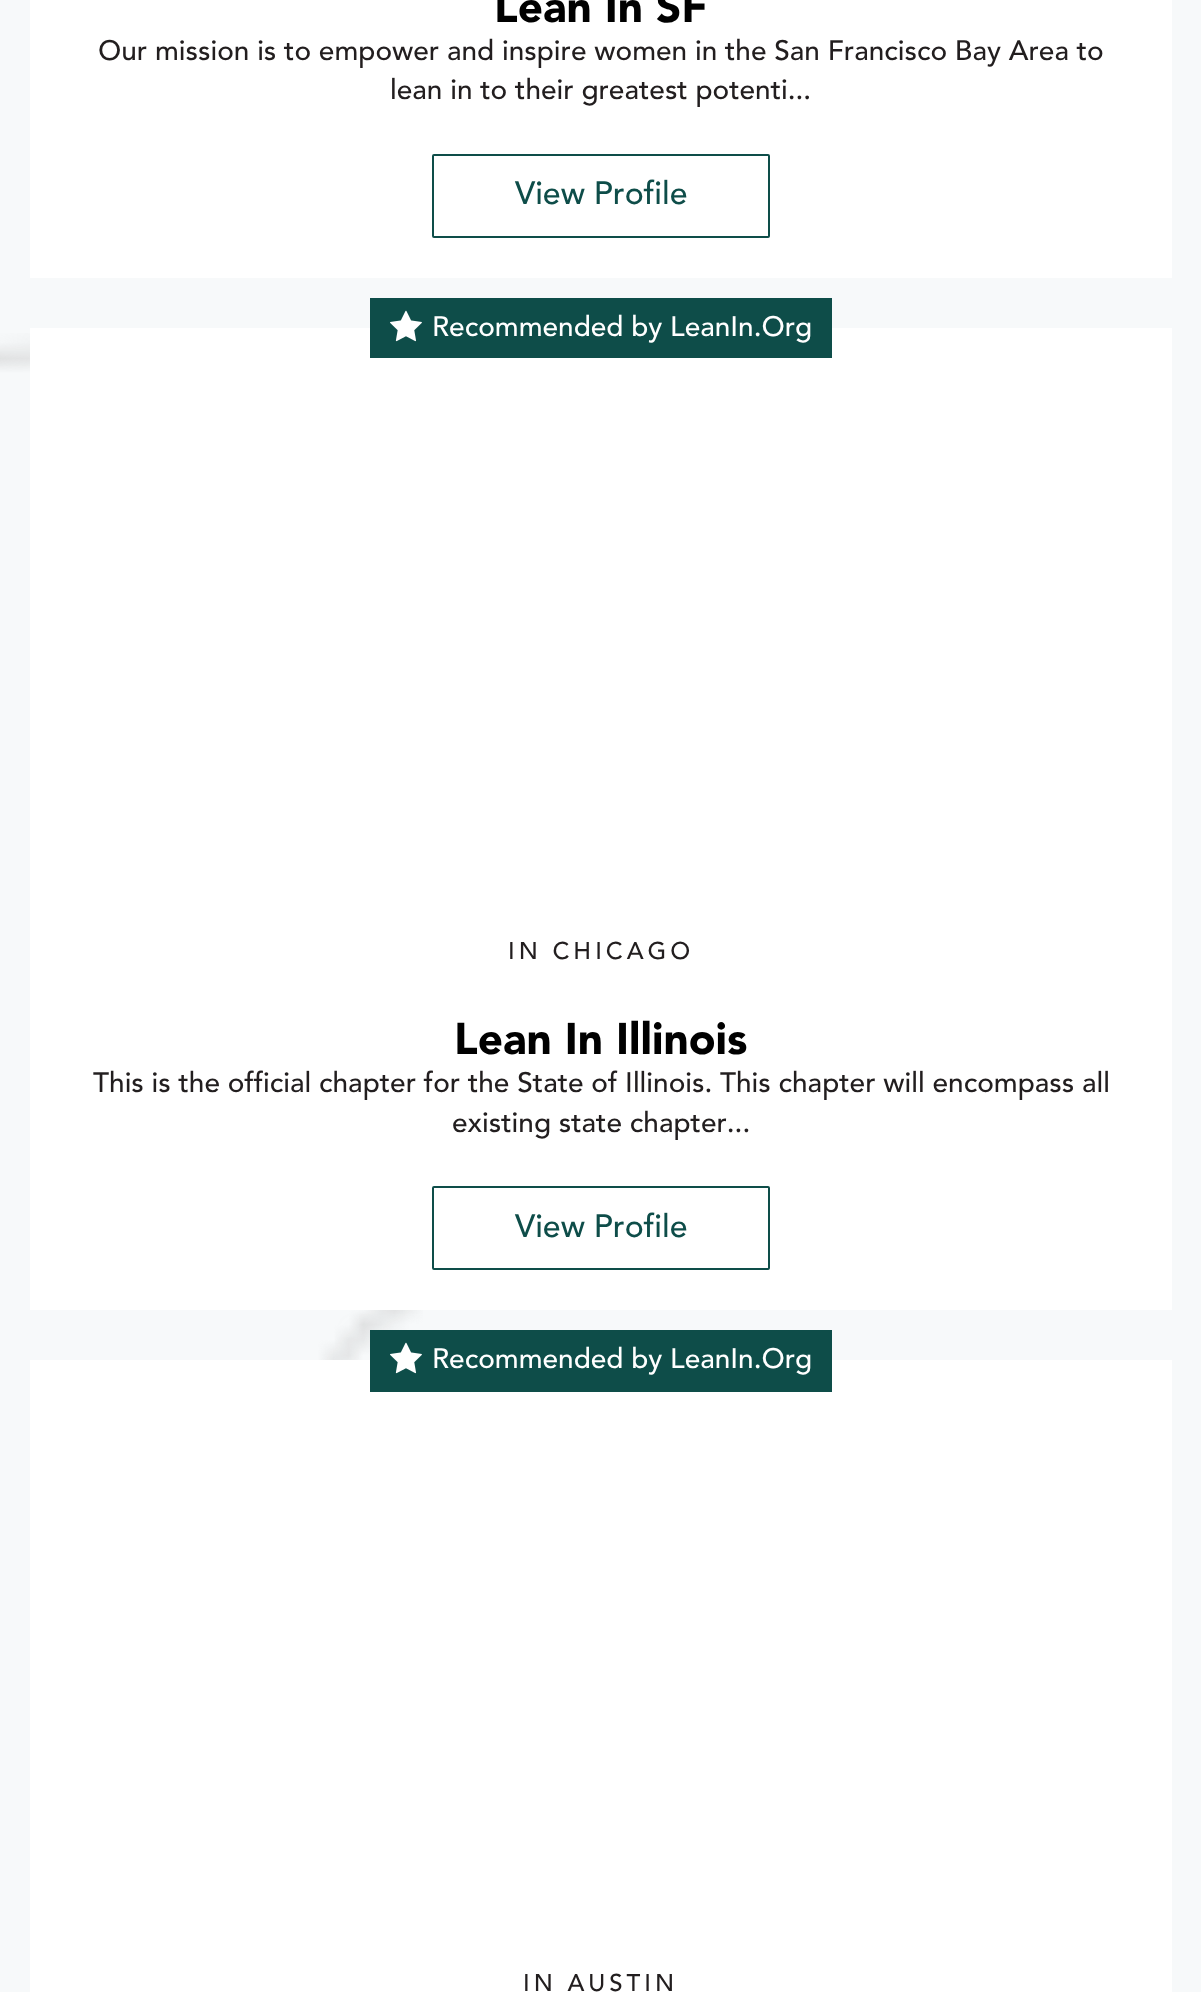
(async () => {
    const canvas = document.querySelector("canvas");
    canvas.width = 1201;
    canvas.height = 1992;
    const context = canvas.getContext("2d");
    context.miterLimit = 4;
    context.fontKerning = "normal";
    function write(s, x, y, font, color) {
        context.font = font;
        context.fillStyle = color;
        context.fillText(s, x, y);
    }
    function block(x, y, w, h, color) {
        context.fillStyle = color;
        context.fillRect(x, y, w, h);
    }
    async function photo(src, x, y, w, h) {
        const img = new Image();
        img.src = src;
        await img.decode();
        context.drawImage(img, x, y, w, h);
    }

    block(0, 0, 1201, 1992, "rgb(247, 249, 250)");
    await photo("media/1.png", 0, 333, 423, 1027);
    block(30, 0, 1142, 278, "rgb(255, 255, 255)");
    write("Lean In SF", 494, 22, "900 44px Avenir", "rgb(0, 0, 0)");
    write("Our mission is to empower and inspire women in the San Francisco Bay Area to", 98, 60, "28px Avenir", "rgb(34, 30, 31)");
    write("lean in to their greatest potenti...", 390, 99, "28px Avenir", "rgb(34, 30, 31)");
    context.beginPath();
    context.roundRect(433, 155, 336, 82, 1);
    context.strokeStyle = "rgb(14, 77, 73)";
    context.lineWidth = 2;
    context.stroke();
    write("View Profile", 515, 204, "32px Avenir", "rgb(14, 77, 73)");
    block(30, 328, 1142, 982, "rgb(255, 255, 255)");
    block(370, 298, 462, 60, "rgb(14, 77, 73)");
    await photo("media/2.png", 390, 310, 32, 32);
    write("Recommended by LeanIn.Org", 432, 336, "28px Avenir", "rgb(255, 255, 255)");
    context.letterSpacing = "4px";
    write("IN CHICAGO", 508, 959, "24px Avenir", "rgb(34, 30, 31)");
    context.letterSpacing = "0px";
    write("Lean In Illinois", 454, 1054, "900 44px Avenir", "rgb(0, 0, 0)");
    write("This is the official chapter for the State of Illinois. This chapter will encompass all", 93, 1092, "28px Avenir", "rgb(34, 30, 31)");
    write("existing state chapter...", 452, 1132, "28px Avenir", "rgb(34, 30, 31)");
    context.beginPath();
    context.roundRect(433, 1187, 336, 82, 1);
    context.stroke();
    write("View Profile", 515, 1237, "32px Avenir", "rgb(14, 77, 73)");
    block(30, 1360, 1142, 632, "rgb(255, 255, 255)");
    block(370, 1330, 462, 62, "rgb(14, 77, 73)");
    await photo("media/2.png", 390, 1342, 32, 32);
    write("Recommended by LeanIn.Org", 432, 1368, "28px Avenir", "rgb(255, 255, 255)");
    context.letterSpacing = "4px";
    write("IN AUSTIN", 523, 1991, "24px Avenir", "rgb(34, 30, 31)");
})();
